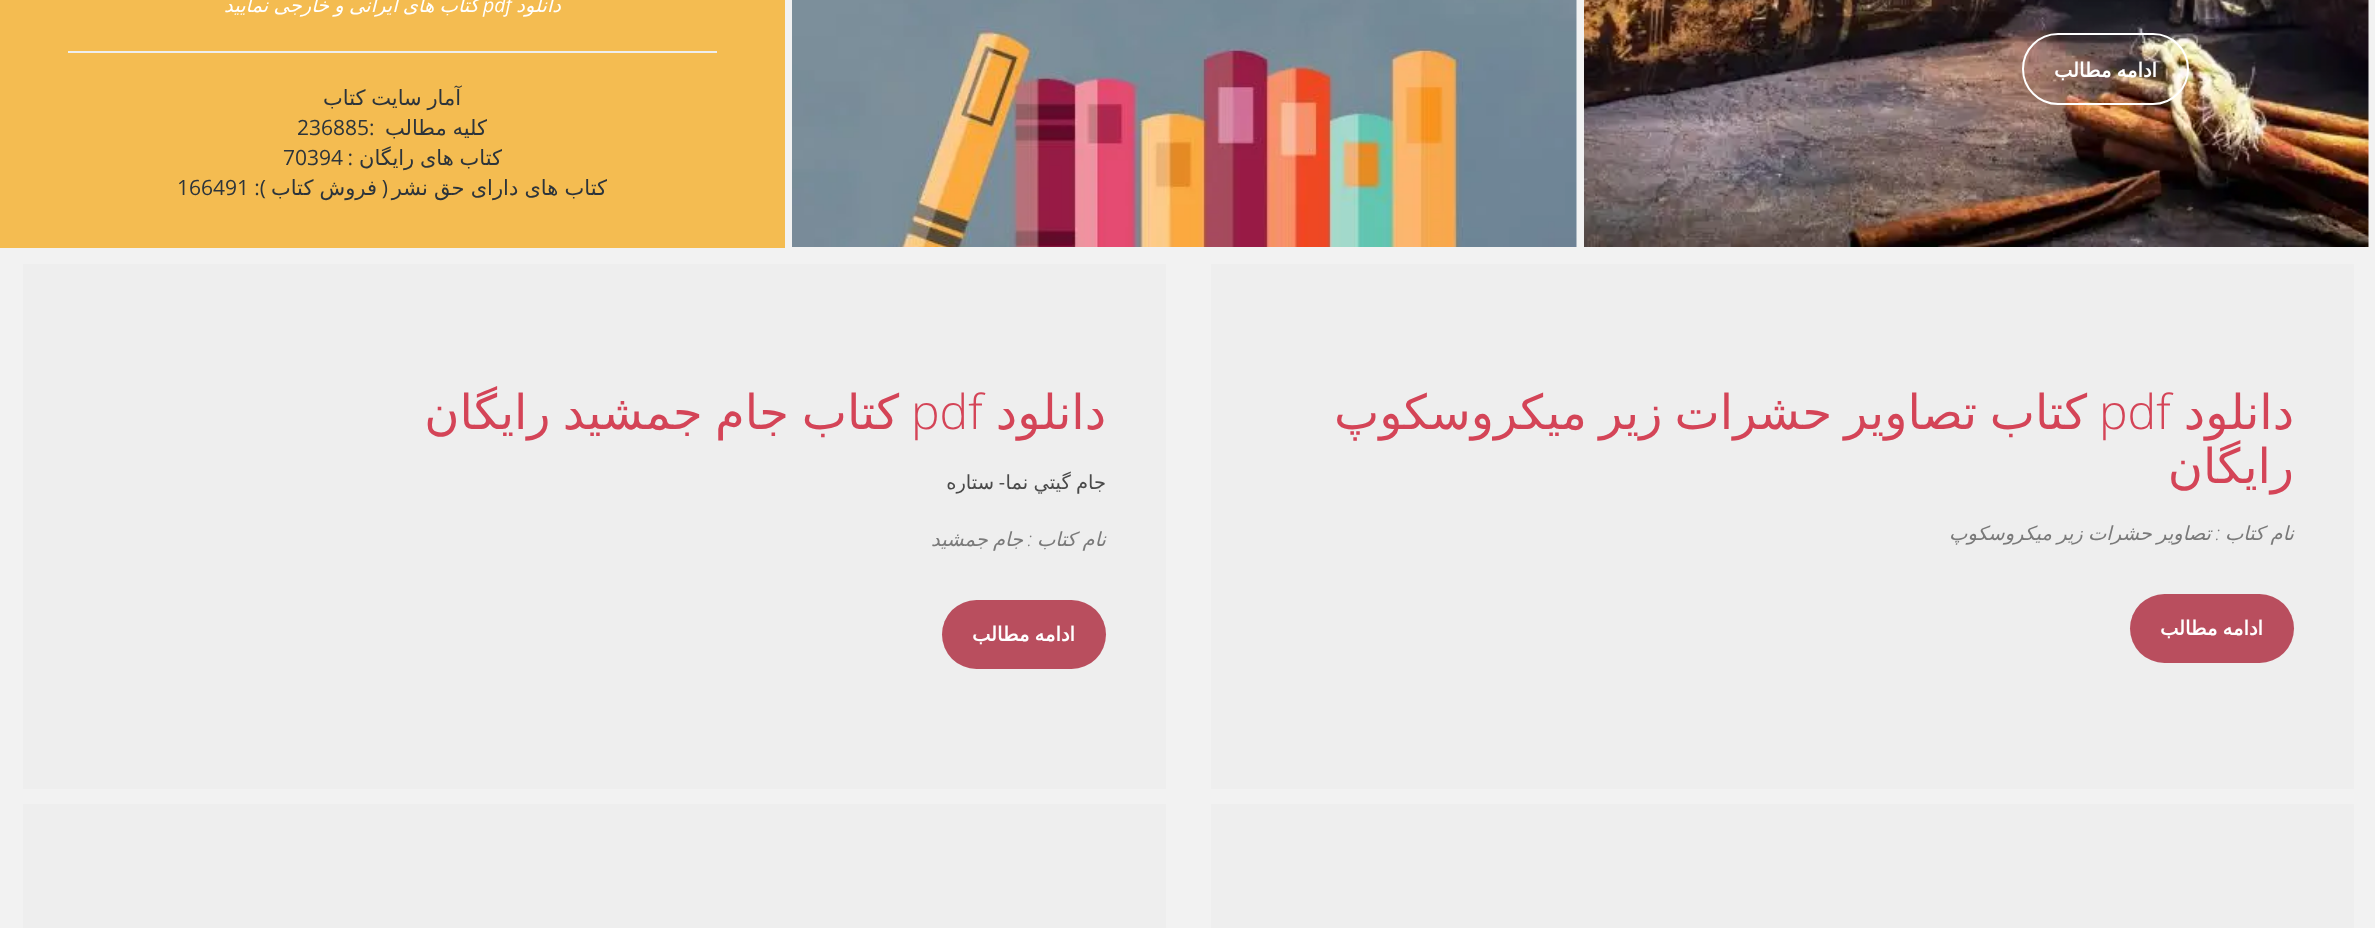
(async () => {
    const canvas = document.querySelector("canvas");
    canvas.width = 2375;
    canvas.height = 928;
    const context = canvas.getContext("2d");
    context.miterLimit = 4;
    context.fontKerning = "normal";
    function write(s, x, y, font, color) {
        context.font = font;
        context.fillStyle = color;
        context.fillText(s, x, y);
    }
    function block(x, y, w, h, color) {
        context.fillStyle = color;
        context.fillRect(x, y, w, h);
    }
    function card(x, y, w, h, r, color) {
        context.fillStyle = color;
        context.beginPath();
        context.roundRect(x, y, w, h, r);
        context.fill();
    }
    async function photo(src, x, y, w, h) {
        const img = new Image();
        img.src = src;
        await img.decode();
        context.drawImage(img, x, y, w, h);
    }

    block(0, 0, 2375, 928, "rgb(242, 242, 242)");
    await photo("media/1.png", 1584, 0, 785, 247);
    context.beginPath();
    context.roundRect(2023, 34, 165, 70, 35);
    context.strokeStyle = "rgb(255, 255, 255)";
    context.lineWidth = 2;
    context.stroke();
    context.wordSpacing = "-1px";
    context.direction = "rtl";
    write("ادامه مطالب", 2157, 77, "bold 19.5px DejaVu Sans", "rgb(255, 255, 255)");
    await photo("media/2.png", 792, 0, 785, 247);
    block(0, 0, 785, 248, "rgb(244, 188, 81)");
    context.wordSpacing = "0px";
    write("دانلود", 561, 12, "italic 19.5px DejaVu Sans", "rgb(255, 255, 255)");
    context.wordSpacing = "-1px";
    write("کتاب های ایرانی و خارجی نمایید", 479, 12, "italic 19.5px DejaVu Sans", "rgb(255, 255, 255)");
    context.wordSpacing = "0px";
    context.direction = "ltr";
    write("pdf", 483, 12, "italic 19.5px Open Sans", "rgb(255, 255, 255)");
    block(68, 51, 649, 2, "rgb(238, 238, 238)");
    context.wordSpacing = "-1px";
    context.direction = "rtl";
    write("آمار سایت کتاب", 461, 105, "21px DejaVu Sans", "rgb(44, 52, 59)");
    write("کلیه مطالب", 487, 135, "21px DejaVu Sans", "rgb(44, 52, 59)");
    context.wordSpacing = "0px";
    context.direction = "ltr";
    write("236885:", 297, 135, "21px Open Sans", "rgb(44, 52, 59)");
    context.wordSpacing = "-1px";
    context.direction = "rtl";
    write("کتاب های رایگان", 502, 165, "21px DejaVu Sans", "rgb(44, 52, 59)");
    context.wordSpacing = "0px";
    write(":", 353, 165, "21px Open Sans", "rgb(44, 52, 59)");
    context.direction = "ltr";
    write("70394", 283, 165, "21px Open Sans", "rgb(44, 52, 59)");
    context.wordSpacing = "-0.5px";
    context.direction = "rtl";
    write("کتاب های دارای حق نشر", 607, 195, "21px DejaVu Sans", "rgb(44, 52, 59)");
    context.wordSpacing = "0px";
    write("(", 388, 195, "21px Open Sans", "rgb(44, 52, 59)");
    context.wordSpacing = "-0.5px";
    write("فروش کتاب", 377, 195, "21px DejaVu Sans", "rgb(44, 52, 59)");
    context.wordSpacing = "0px";
    write("):", 266, 195, "21px Open Sans", "rgb(44, 52, 59)");
    context.direction = "ltr";
    write("166491", 177, 195, "21px Open Sans", "rgb(44, 52, 59)");
    block(1211, 264, 1143, 525, "rgb(238, 238, 238)");
    context.direction = "rtl";
    write("دانلود", 2294, 429, "48px DejaVu Sans", "rgb(212, 68, 87)");
    context.direction = "ltr";
    write("pdf", 2099, 429, "300 48px Open Sans", "rgb(212, 68, 87)");
    context.direction = "rtl";
    write("کتاب", 2087, 429, "48px DejaVu Sans", "rgb(212, 68, 87)");
    context.wordSpacing = "-3px";
    write("تصاویر حشرات زیر میکروسکوپ", 1977, 429, "48px DejaVu Sans", "rgb(212, 68, 87)");
    context.wordSpacing = "0px";
    write("رایگان", 2294, 483, "48px DejaVu Sans", "rgb(212, 68, 87)");
    write("نام کتاب", 2294, 540, "italic 19.5px DejaVu Sans", "rgb(122, 122, 122)");
    write(":", 2220, 540, "italic 300 19.5px Open Sans", "rgb(122, 122, 122)");
    context.wordSpacing = "-1px";
    write("تصاویر حشرات زیر میکروسکوپ", 2211, 540, "italic 19.5px DejaVu Sans", "rgb(122, 122, 122)");
    card(2130, 594, 164, 69, 34.5, "rgb(185, 78, 94)");
    write("ادامه مطالب", 2263, 635, "bold 19.5px DejaVu Sans", "rgb(255, 255, 255)");
    block(23, 264, 1143, 525, "rgb(238, 238, 238)");
    context.wordSpacing = "0px";
    write("دانلود", 1106, 429, "48px DejaVu Sans", "rgb(212, 68, 87)");
    context.direction = "ltr";
    write("pdf", 911, 429, "300 48px Open Sans", "rgb(212, 68, 87)");
    context.direction = "rtl";
    write("کتاب", 899, 429, "48px DejaVu Sans", "rgb(212, 68, 87)");
    context.wordSpacing = "-3px";
    write("جام جمشید رایگان", 789, 429, "48px DejaVu Sans", "rgb(212, 68, 87)");
    context.wordSpacing = "-1px";
    write("جام گيتي نما", 1106, 489, "19.5px DejaVu Sans", "rgb(74, 74, 74)");
    context.wordSpacing = "0px";
    write("-", 1005, 489, "19.5px Open Sans", "rgb(74, 74, 74)");
    write("ستاره", 994, 489, "19.5px DejaVu Sans", "rgb(74, 74, 74)");
    write("نام کتاب", 1106, 546, "italic 19.5px DejaVu Sans", "rgb(122, 122, 122)");
    write(":", 1032, 546, "italic 300 19.5px Open Sans", "rgb(122, 122, 122)");
    context.wordSpacing = "-1px";
    write("جام جمشید", 1023, 546, "italic 19.5px DejaVu Sans", "rgb(122, 122, 122)");
    card(942, 600, 164, 69, 34.5, "rgb(185, 78, 94)");
    write("ادامه مطالب", 1075, 641, "bold 19.5px DejaVu Sans", "rgb(255, 255, 255)");
    block(1211, 804, 1143, 124, "rgb(238, 238, 238)");
    block(23, 804, 1143, 124, "rgb(238, 238, 238)");
})();
